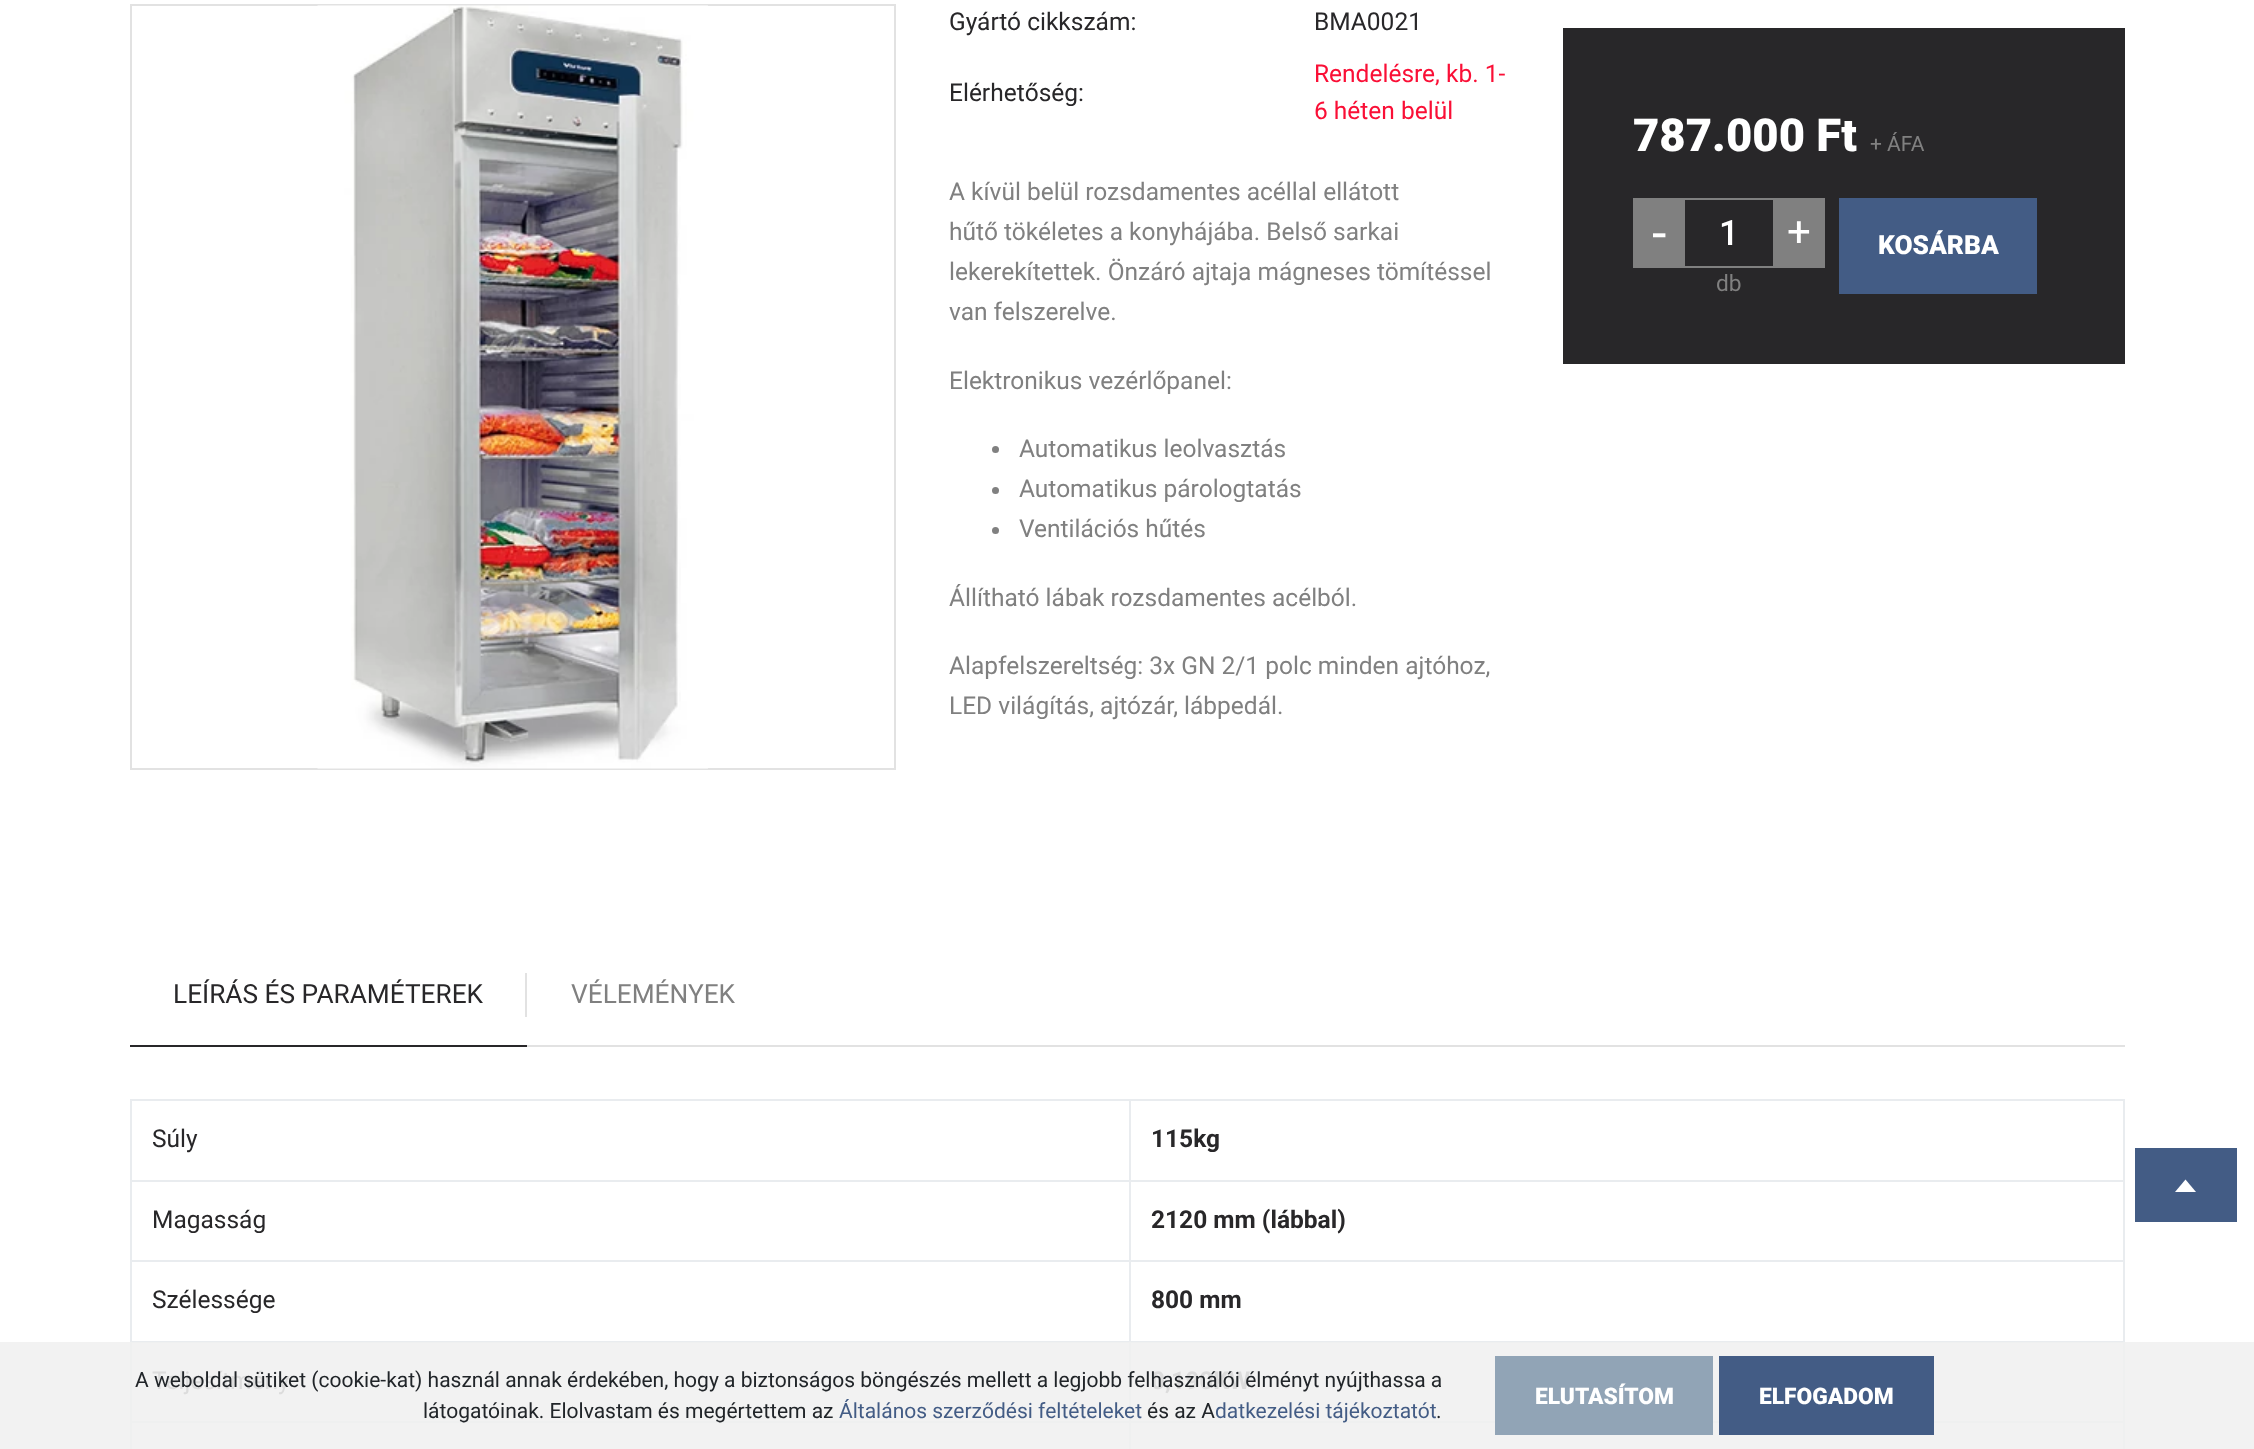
(async () => {
    const canvas = document.querySelector("canvas");
    canvas.width = 2254;
    canvas.height = 1449;
    const context = canvas.getContext("2d");
    context.miterLimit = 4;
    context.fontKerning = "normal";
    function write(s, x, y, font, color) {
        context.font = font;
        context.fillStyle = color;
        context.fillText(s, x, y);
    }
    function block(x, y, w, h, color) {
        context.fillStyle = color;
        context.fillRect(x, y, w, h);
    }
    async function photo(src, x, y, w, h) {
        const img = new Image();
        img.src = src;
        await img.decode();
        context.drawImage(img, x, y, w, h);
    }

    block(0, 0, 2254, 1449, "rgb(255, 255, 255)");
    block(0, 1342, 2254, 107, "rgb(242, 242, 242)");
    context.strokeStyle = "rgb(226, 226, 226)";
    context.lineWidth = 2;
    context.strokeRect(131, 5, 764, 764);
    await photo("media/1.png", 317, 5, 391, 764);
    write("Gyártó cikkszám:", 949, 30, "24.5px Roboto", "rgb(40, 39, 41)");
    write("BMA0021", 1314, 30, "24.5px Roboto", "rgb(40, 39, 41)");
    write("Elérhetőség:", 949, 101, "24.5px Roboto", "rgb(40, 39, 41)");
    write("Rendelésre, kb. 1-", 1314, 82, "24.5px Roboto", "rgb(250, 15, 54)");
    write("6 héten belül", 1314, 119, "24.5px Roboto", "rgb(250, 15, 54)");
    write("A kívül belül rozsdamentes acéllal ellátott", 949, 200, "24.5px Roboto", "rgb(128, 128, 128)");
    write("hűtő tökéletes a konyhájába. Belső sarkai", 949, 240, "24.5px Roboto", "rgb(128, 128, 128)");
    write("lekerekítettek. Önzáró ajtaja mágneses tömítéssel", 949, 280, "24.5px Roboto", "rgb(128, 128, 128)");
    write("van felszerelve.", 949, 320, "24.5px Roboto", "rgb(128, 128, 128)");
    write("Elektronikus vezérlőpanel:", 949, 389, "24.5px Roboto", "rgb(128, 128, 128)");
    context.beginPath();
    context.arc(995.5, 449.5, 3.5, 0, Math.PI * 2);
    context.fill();
    write("Automatikus leolvasztás", 1019, 457, "24.5px Roboto", "rgb(128, 128, 128)");
    context.beginPath();
    context.arc(995.5, 490.5, 3.5, 0, Math.PI * 2);
    context.fill();
    write("Automatikus párologtatás", 1019, 497, "24.5px Roboto", "rgb(128, 128, 128)");
    context.beginPath();
    context.arc(995.5, 530.5, 3.5, 0, Math.PI * 2);
    context.fill();
    write("Ventilációs hűtés", 1019, 537, "24.5px Roboto", "rgb(128, 128, 128)");
    write("Állítható lábak rozsdamentes acélból.", 949, 606, "24.5px Roboto", "rgb(128, 128, 128)");
    write("Alapfelszereltség: 3x GN 2/1 polc minden ajtóhoz,", 949, 674, "24.5px Roboto", "rgb(128, 128, 128)");
    write("LED világítás, ajtózár, lábpedál.", 949, 714, "24.5px Roboto", "rgb(128, 128, 128)");
    block(1563, 28, 562, 336, "rgb(40, 39, 41)");
    write("787.000 Ft", 1633, 151, "900 45.5px Roboto", "rgb(255, 255, 255)");
    write("+ ÁFA", 1870, 151, "21px Roboto", "rgb(128, 128, 128)");
    block(1633, 198, 192, 70, "rgb(128, 128, 128)");
    write("-", 1652, 251, "52px Roboto", "rgb(255, 255, 255)");
    block(1685, 200, 88, 66, "rgb(40, 39, 41)");
    write("1", 1719, 245, "500 35px Roboto", "rgb(255, 255, 255)");
    write("+", 1787, 246, "42px Roboto", "rgb(255, 255, 255)");
    write("db", 1716, 291, "22.75px Roboto", "rgb(128, 128, 128)");
    block(1839, 198, 198, 96, "rgb(67, 92, 133)");
    write("KOSÁRBA", 1878, 254, "900 26.25px Roboto", "rgb(255, 255, 255)");
    block(527, 1045, 1598, 2, "rgb(226, 226, 226)");
    block(130, 1045, 397, 2, "rgb(40, 39, 41)");
    write("LEÍRÁS ÉS PARAMÉTEREK", 173, 1003, "26.25px Roboto", "rgb(40, 39, 41)");
    block(525, 973, 2, 44, "rgb(226, 226, 226)");
    write("VÉLEMÉNYEK", 571, 1003, "26.25px Roboto", "rgb(128, 128, 128)");
    block(130, 1099, 1995, 2, "rgb(233, 236, 239)");
    block(2123, 1099, 2, 242, "rgb(233, 236, 239)");
    block(2123, 1342, 2, 107, "rgb(239, 240, 240)");
    block(130, 1099, 2, 242, "rgb(233, 236, 239)");
    block(130, 1342, 2, 107, "rgb(239, 240, 240)");
    write("Súly", 152, 1147, "24.5px Roboto", "rgb(40, 39, 41)");
    block(1129, 1180, 996, 2, "rgb(233, 236, 239)");
    block(1129, 1260, 996, 2, "rgb(233, 236, 239)");
    block(130, 1341, 1995, 1, "rgb(233, 236, 239)");
    block(1129, 1260, 2, 82, "rgb(233, 236, 239)");
    block(130, 1260, 1001, 2, "rgb(233, 236, 239)");
    block(1129, 1180, 2, 82, "rgb(233, 236, 239)");
    block(130, 1180, 1001, 2, "rgb(233, 236, 239)");
    block(1129, 1099, 2, 82, "rgb(233, 236, 239)");
    write("115kg", 1151, 1147, "bold 24.5px Roboto", "rgb(40, 39, 41)");
    write("Magasság", 152, 1228, "24.5px Roboto", "rgb(40, 39, 41)");
    write("2120 mm (lábbal)", 1151, 1228, "bold 24.5px Roboto", "rgb(40, 39, 41)");
    write("Szélessége", 152, 1308, "24.5px Roboto", "rgb(40, 39, 41)");
    write("800 mm", 1151, 1308, "bold 24.5px Roboto", "rgb(40, 39, 41)");
    block(1129, 1342, 996, 1, "rgb(239, 240, 240)");
    block(1129, 1421, 996, 2, "rgb(239, 240, 240)");
    block(1129, 1421, 2, 28, "rgb(239, 240, 240)");
    block(130, 1421, 1001, 2, "rgb(239, 240, 240)");
    block(1129, 1342, 2, 81, "rgb(239, 240, 240)");
    block(130, 1342, 1001, 1, "rgb(239, 240, 240)");
    write("Teljesítmény", 152, 1389, "24.5px Roboto", "rgb(220, 220, 220)");
    write("0,190KW", 1151, 1389, "bold 24.5px Roboto", "rgb(220, 220, 220)");
    block(2135, 1148, 102, 74, "rgb(67, 92, 133)");
    context.fillStyle = "rgb(255, 255, 255)";
    context.beginPath();
    context.moveTo(2196, 1192);
    context.lineTo(2185.5, 1179.5);
    context.lineTo(2175, 1192);
    context.closePath();
    context.fill();
    write("A weboldal sütiket (cookie-kat) használ annak érdekében, hogy a biztonságos böngészés mellett a legjobb felhasználói élményt nyújthassa a", 135, 1387, "21px Roboto", "rgb(33, 37, 41)");
    write("látogatóinak. Elolvastam és megértettem az", 423, 1418, "21px Roboto", "rgb(33, 37, 41)");
    write("Általános szerződési feltételeket", 839, 1418, "21px Roboto", "rgb(67, 92, 133)");
    write("és az A", 1147, 1418, "21px Roboto", "rgb(33, 37, 41)");
    write("datkezelési tájékoztatót", 1215, 1418, "21px Roboto", "rgb(67, 92, 133)");
    write(".", 1436, 1418, "21px Roboto", "rgb(33, 37, 41)");
    block(1495, 1356, 218, 79, "rgb(145, 164, 182)");
    write("ELUTASÍTOM", 1535, 1404, "900 22.75px Roboto", "rgb(255, 255, 255)");
    block(1719, 1356, 215, 79, "rgb(67, 92, 133)");
    write("ELFOGADOM", 1759, 1404, "900 22.75px Roboto", "rgb(255, 255, 255)");
})();
